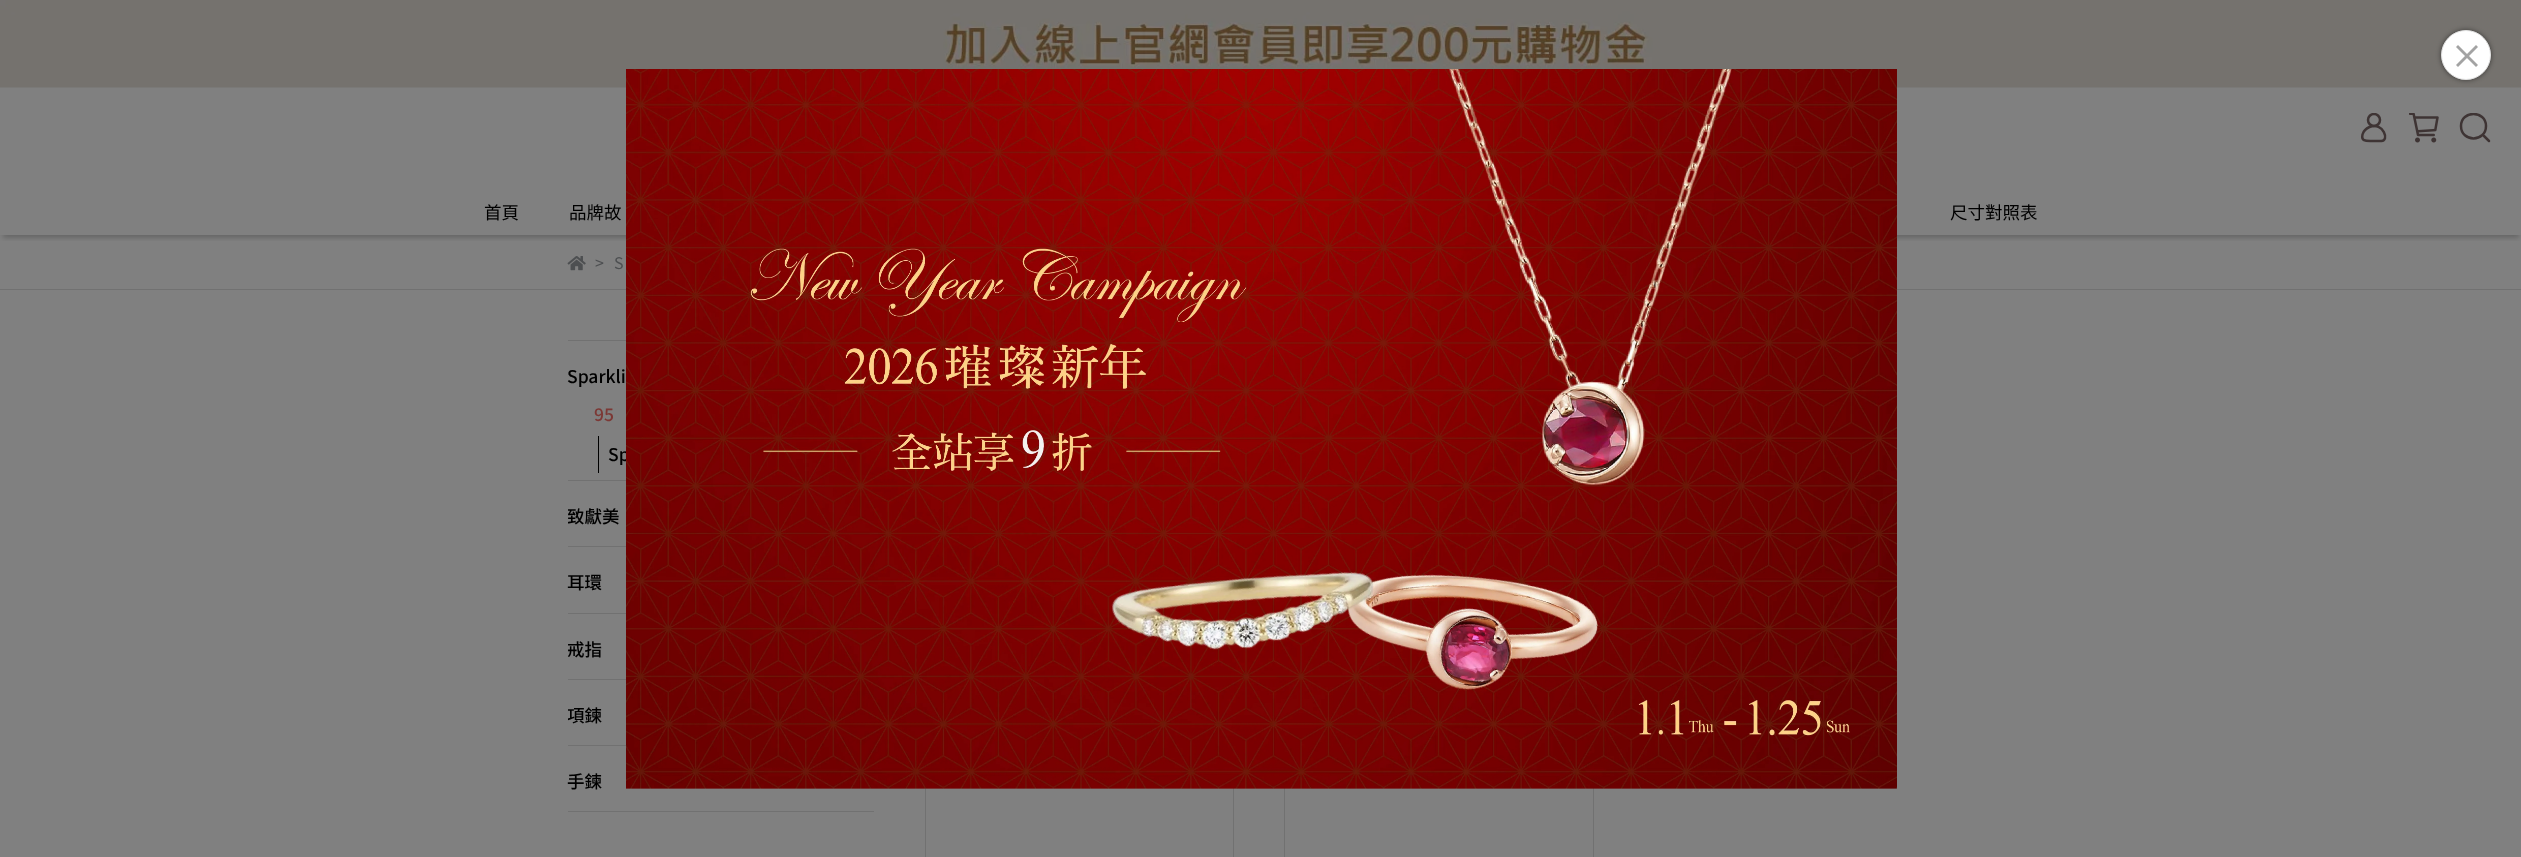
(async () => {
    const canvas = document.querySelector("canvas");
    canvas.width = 2521;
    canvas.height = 857;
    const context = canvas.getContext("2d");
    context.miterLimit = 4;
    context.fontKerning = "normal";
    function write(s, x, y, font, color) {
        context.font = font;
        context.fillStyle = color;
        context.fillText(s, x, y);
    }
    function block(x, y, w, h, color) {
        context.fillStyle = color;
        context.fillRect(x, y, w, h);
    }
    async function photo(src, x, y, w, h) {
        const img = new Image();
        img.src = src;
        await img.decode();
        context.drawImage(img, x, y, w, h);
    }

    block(0, 0, 2521, 857, "rgb(128, 128, 128)");
    await photo("media/2.png", 0, 0, 2521, 88);
    context.fillStyle = "rgba(0, 0, 0, 0.5)";
    context.filter = "blur(2.5px)";
    context.beginPath();
    context.roundRect(2441, 30, 50, 50, 25);
    context.fill();
    context.filter = "none";
    context.fillStyle = "rgb(255, 255, 255)";
    context.beginPath();
    context.arc(2466, 55, 24.5, 0, Math.PI * 2);
    context.fill();
    context.strokeStyle = "rgb(226, 226, 226)";
    context.stroke();
    context.fillStyle = "rgb(163, 163, 163)";
    context.beginPath();
    context.moveTo(2458, 45);
    context.lineTo(2478, 65);
    context.lineTo(2476, 67);
    context.lineTo(2456, 47);
    context.closePath();
    context.fill();
    context.beginPath();
    context.moveTo(2456, 65);
    context.lineTo(2476, 45);
    context.lineTo(2478, 47);
    context.lineTo(2458, 67);
    context.closePath();
    context.fill();
    context.save();
    context.beginPath();
    context.rect(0, 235, 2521, 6);
    context.clip();
    context.fillStyle = "rgba(0, 0, 0, 0.2)";
    context.filter = "blur(2.5px)";
    context.beginPath();
    context.rect(3, 196, 2516, 42);
    context.fill();
    context.filter = "none";
    context.restore();
    block(0, 289, 2521, 1, "rgb(113, 113, 113)");
    write("Sp", 608, 461, "500 17.5px Noto Sans TC", "rgb(0, 0, 0)");
    context.strokeStyle = "rgb(113, 113, 113)";
    context.strokeRect(925.5, 458.5, 308, 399);
    context.strokeRect(1284.5, 458.5, 309, 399);
    await photo("media/1.png", 626, 69, 1271, 720);
    context.save();
    context.beginPath();
    context.rect(2359, 113, 30, 30);
    context.clip();
    context.beginPath();
    context.arc(2374, 120, 6, 0, Math.PI * 2);
    context.strokeStyle = "rgb(62, 52, 52)";
    context.lineWidth = 2.5;
    context.stroke();
    context.restore();
    context.beginPath();
    context.moveTo(2381, 141);
    context.lineTo(2371.5, 141);
    context.bezierCurveTo(2366, 141, 2361, 141.5, 2362.5, 134.5);
    context.bezierCurveTo(2363.5, 131, 2366, 128.5, 2369.5, 127);
    context.bezierCurveTo(2383.5, 121.5, 2390, 141.5, 2381, 141);
    context.closePath();
    context.strokeStyle = "rgb(62, 52, 52)";
    context.lineWidth = 2.5;
    context.stroke();
    await photo("media/3.png", 2409, 113, 30, 30);
    context.save();
    context.beginPath();
    context.rect(2459, 113, 32, 30);
    context.clip();
    context.beginPath();
    context.moveTo(2486, 126);
    context.bezierCurveTo(2486, 142.5, 2461, 142.5, 2461, 126);
    context.bezierCurveTo(2461, 110, 2486, 110, 2486, 126);
    context.closePath();
    context.lineCap = "round";
    context.lineJoin = "round";
    context.stroke();
    context.restore();
    context.beginPath();
    context.moveTo(2484, 136);
    context.lineTo(2489, 141);
    context.lineCap = "round";
    context.lineJoin = "round";
    context.stroke();
    write("首頁", 484, 219, "17.5px Noto Sans TC", "rgb(0, 0, 0)");
    write("品牌故", 569, 219, "17.5px Noto Sans TC", "rgb(0, 0, 0)");
    write("尺寸對照表", 1950, 219, "17.5px Noto Sans TC", "rgb(0, 0, 0)");
    await photo("media/4.png", 567, 256, 19, 15);
    write(">", 595, 269, "16px Noto Sans TC", "rgb(77, 79, 81)");
    write("S", 614, 269, "16px Noto Sans TC", "rgb(77, 79, 81)");
    block(568, 340, 58, 1, "rgb(113, 113, 113)");
    block(568, 480, 58, 1, "rgb(113, 113, 113)");
    write("Sparkli", 567, 383, "500 17.5px Noto Sans TC", "rgb(0, 0, 0)");
    write("95", 594, 421, "500 17.5px Noto Sans TC", "rgb(124, 56, 53)");
    block(598, 436, 1, 37, "rgb(0, 0, 0)");
    block(568, 546, 58, 1, "rgb(113, 113, 113)");
    context.save();
    context.beginPath();
    context.rect(568, 341, 306, 472);
    context.clip();
    write("致獻美", 567, 523, "500 17.5px Noto Sans TC", "rgb(0, 0, 0)");
    context.restore();
    block(568, 613, 58, 1, "rgb(113, 113, 113)");
    write("耳環", 567, 589, "500 17.5px Noto Sans TC", "rgb(0, 0, 0)");
    block(568, 679, 58, 1, "rgb(113, 113, 113)");
    write("戒指", 567, 656, "500 17.5px Noto Sans TC", "rgb(0, 0, 0)");
    block(568, 745, 58, 1, "rgb(113, 113, 113)");
    context.save();
    context.beginPath();
    context.rect(568, 341, 306, 472);
    context.clip();
    write("項鍊", 567, 722, "500 17.5px Noto Sans TC", "rgb(0, 0, 0)");
    context.restore();
    block(568, 811, 306, 1, "rgb(113, 113, 113)");
    write("手鍊", 567, 788, "500 17.5px Noto Sans TC", "rgb(0, 0, 0)");
})();
